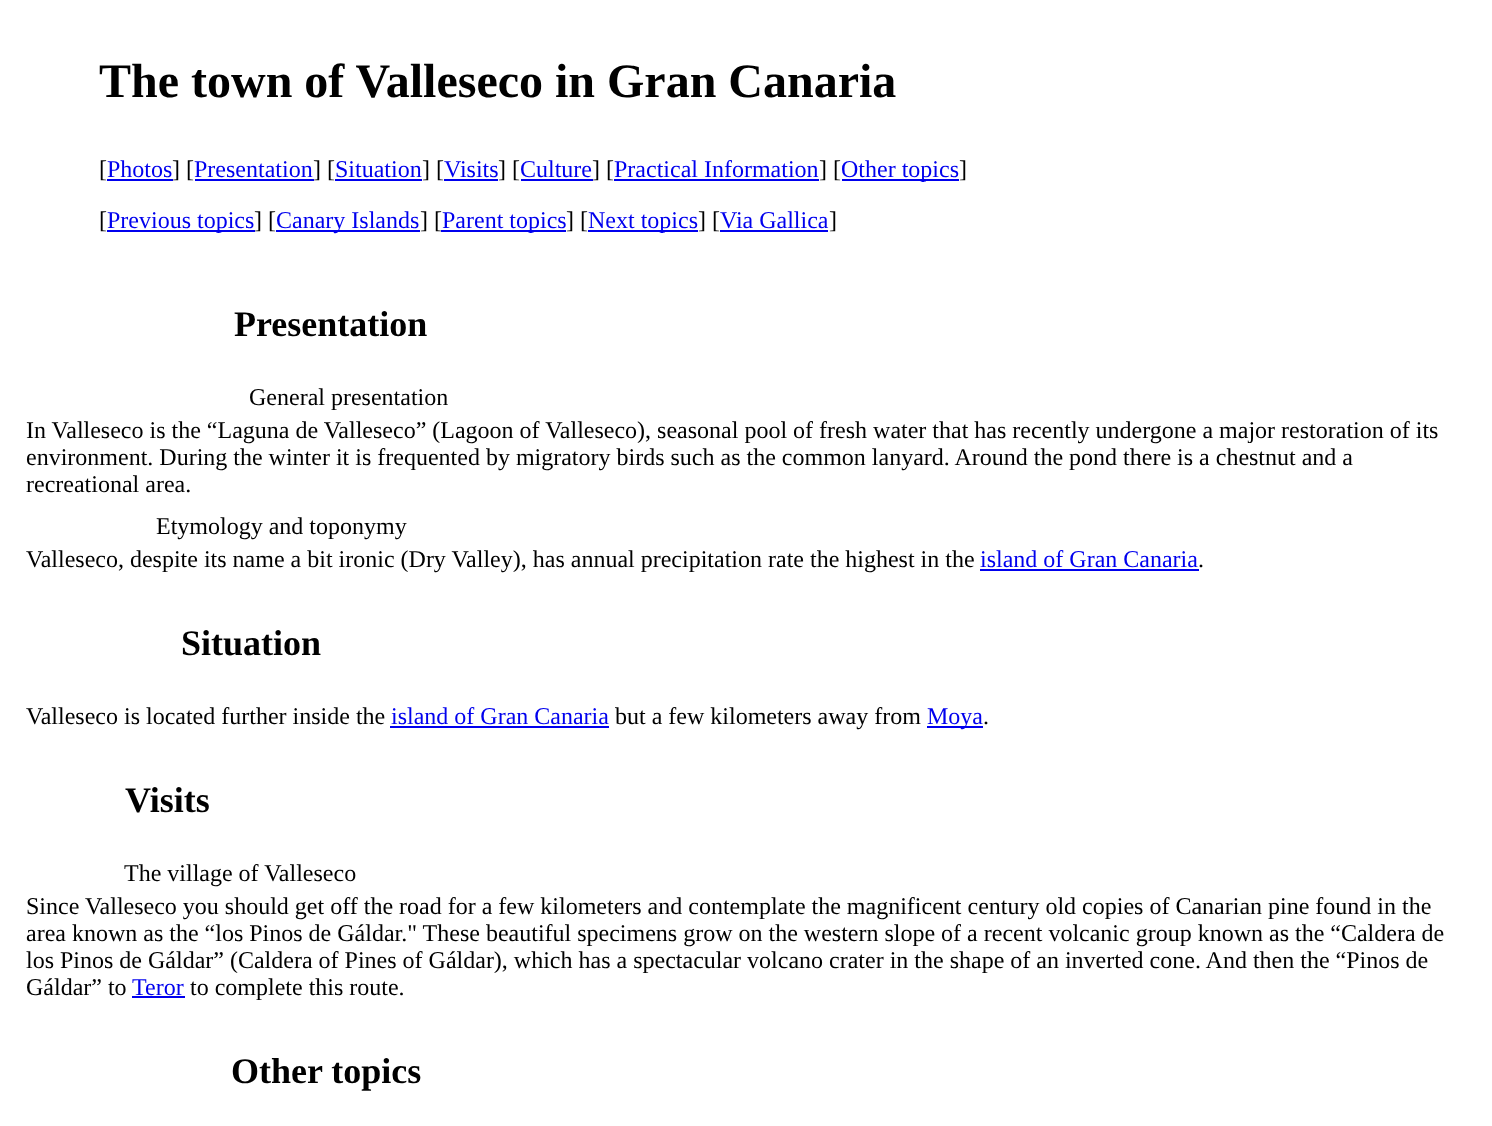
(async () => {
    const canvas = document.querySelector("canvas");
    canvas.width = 1492;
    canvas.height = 1126;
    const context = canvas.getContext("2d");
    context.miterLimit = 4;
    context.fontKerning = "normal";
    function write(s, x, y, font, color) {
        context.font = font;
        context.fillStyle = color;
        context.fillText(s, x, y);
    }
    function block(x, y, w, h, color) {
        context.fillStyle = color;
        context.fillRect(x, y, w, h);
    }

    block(0, 0, 1492, 1126, "rgb(255, 255, 255)");
    write("The town of Valleseco in Gran Canaria", 99, 97, "bold 48px Liberation Serif", "rgb(0, 0, 0)");
    write("[", 99, 177, "24px Liberation Serif", "rgb(0, 0, 0)");
    write("Photos", 107, 177, "24px Liberation Serif", "rgb(0, 0, 238)");
    block(107, 179, 66, 2, "rgb(0, 0, 238)");
    write("] [", 172, 177, "24px Liberation Serif", "rgb(0, 0, 0)");
    write("Presentation", 194, 177, "24px Liberation Serif", "rgb(0, 0, 238)");
    block(195, 179, 119, 2, "rgb(0, 0, 238)");
    write("] [", 313, 177, "24px Liberation Serif", "rgb(0, 0, 0)");
    write("Situation", 335, 177, "24px Liberation Serif", "rgb(0, 0, 238)");
    block(335, 179, 87, 2, "rgb(0, 0, 238)");
    write("] [", 422, 177, "24px Liberation Serif", "rgb(0, 0, 0)");
    write("Visits", 444, 177, "24px Liberation Serif", "rgb(0, 0, 238)");
    block(444, 179, 54, 2, "rgb(0, 0, 238)");
    write("] [", 498, 177, "24px Liberation Serif", "rgb(0, 0, 0)");
    write("Culture", 520, 177, "24px Liberation Serif", "rgb(0, 0, 238)");
    block(521, 179, 72, 2, "rgb(0, 0, 238)");
    write("] [", 592, 177, "24px Liberation Serif", "rgb(0, 0, 0)");
    write("Practical Information", 614, 177, "24px Liberation Serif", "rgb(0, 0, 238)");
    block(614, 179, 205, 2, "rgb(0, 0, 238)");
    write("] [", 819, 177, "24px Liberation Serif", "rgb(0, 0, 0)");
    block(842, 179, 117, 2, "rgb(0, 0, 238)");
    write("Other topics", 841, 177, "24px Liberation Serif", "rgb(0, 0, 238)");
    write("]", 959, 177, "24px Liberation Serif", "rgb(0, 0, 0)");
    write("[", 99, 228, "24px Liberation Serif", "rgb(0, 0, 0)");
    block(107, 230, 148, 2, "rgb(0, 0, 238)");
    write("Previous topics", 107, 228, "24px Liberation Serif", "rgb(0, 0, 238)");
    write("] [", 254, 228, "24px Liberation Serif", "rgb(0, 0, 0)");
    block(276, 230, 144, 2, "rgb(0, 0, 238)");
    write("Canary Islands", 276, 228, "24px Liberation Serif", "rgb(0, 0, 238)");
    write("] [", 420, 228, "24px Liberation Serif", "rgb(0, 0, 0)");
    block(441, 230, 125, 2, "rgb(0, 0, 238)");
    write("Parent topics", 442, 228, "24px Liberation Serif", "rgb(0, 0, 238)");
    write("] [", 566, 228, "24px Liberation Serif", "rgb(0, 0, 0)");
    block(588, 230, 110, 2, "rgb(0, 0, 238)");
    write("Next topics", 588, 228, "24px Liberation Serif", "rgb(0, 0, 238)");
    write("] [", 698, 228, "24px Liberation Serif", "rgb(0, 0, 0)");
    write("Via Gallica", 720, 228, "24px Liberation Serif", "rgb(0, 0, 238)");
    block(720, 230, 108, 2, "rgb(0, 0, 238)");
    write("]", 829, 228, "24px Liberation Serif", "rgb(0, 0, 0)");
    write("Presentation", 234, 336, "bold 36px Liberation Serif", "rgb(0, 0, 0)");
    write("General presentation", 249, 405, "24px Liberation Serif", "rgb(0, 0, 0)");
    write("In Valleseco is the “Laguna de Valleseco” (Lagoon of Valleseco), seasonal pool of fresh water that has recently undergone a major restoration of its", 26, 438, "24px Liberation Serif", "rgb(0, 0, 0)");
    write("environment. During the winter it is frequented by migratory birds such as the common lanyard. Around the pond there is a chestnut and a", 26, 465, "24px Liberation Serif", "rgb(0, 0, 0)");
    write("recreational area.", 26, 492, "24px Liberation Serif", "rgb(0, 0, 0)");
    write("Etymology and toponymy", 156, 534, "24px Liberation Serif", "rgb(0, 0, 0)");
    write("Valleseco, despite its name a bit ironic (Dry Valley), has annual precipitation rate the highest in the", 26, 567, "24px Liberation Serif", "rgb(0, 0, 0)");
    write("island of Gran Canaria", 980, 567, "24px Liberation Serif", "rgb(0, 0, 238)");
    block(980, 569, 219, 2, "rgb(0, 0, 238)");
    write(".", 1198, 567, "24px Liberation Serif", "rgb(0, 0, 0)");
    write("Situation", 181, 655, "bold 36px Liberation Serif", "rgb(0, 0, 0)");
    write("Valleseco is located further inside the", 26, 724, "24px Liberation Serif", "rgb(0, 0, 0)");
    write("island of Gran Canaria", 391, 724, "24px Liberation Serif", "rgb(0, 0, 238)");
    block(390, 726, 219, 2, "rgb(0, 0, 238)");
    write("but a few kilometers away from", 615, 724, "24px Liberation Serif", "rgb(0, 0, 0)");
    block(927, 726, 56, 2, "rgb(0, 0, 238)");
    write("Moya", 927, 724, "24px Liberation Serif", "rgb(0, 0, 238)");
    write(".", 983, 724, "24px Liberation Serif", "rgb(0, 0, 0)");
    write("Visits", 125, 812, "bold 36px Liberation Serif", "rgb(0, 0, 0)");
    write("The village of Valleseco", 124, 881, "24px Liberation Serif", "rgb(0, 0, 0)");
    write("Since Valleseco you should get off the road for a few kilometers and contemplate the magnificent century old copies of Canarian pine found in the", 26, 914, "24px Liberation Serif", "rgb(0, 0, 0)");
    write("area known as the “los Pinos de Gáldar.\" These beautiful specimens grow on the western slope of a recent volcanic group known as the “Caldera de", 26, 941, "24px Liberation Serif", "rgb(0, 0, 0)");
    write("los Pinos de Gáldar” (Caldera of Pines of Gáldar), which has a spectacular volcano crater in the shape of an inverted cone. And then the “Pinos de", 26, 968, "24px Liberation Serif", "rgb(0, 0, 0)");
    write("Gáldar” to", 26, 995, "24px Liberation Serif", "rgb(0, 0, 0)");
    write("Teror", 132, 995, "24px Liberation Serif", "rgb(0, 0, 238)");
    block(132, 996, 53, 2, "rgb(0, 0, 238)");
    write("to complete this route.", 190, 995, "24px Liberation Serif", "rgb(0, 0, 0)");
    write("Other topics", 231, 1083, "bold 36px Liberation Serif", "rgb(0, 0, 0)");
})();
